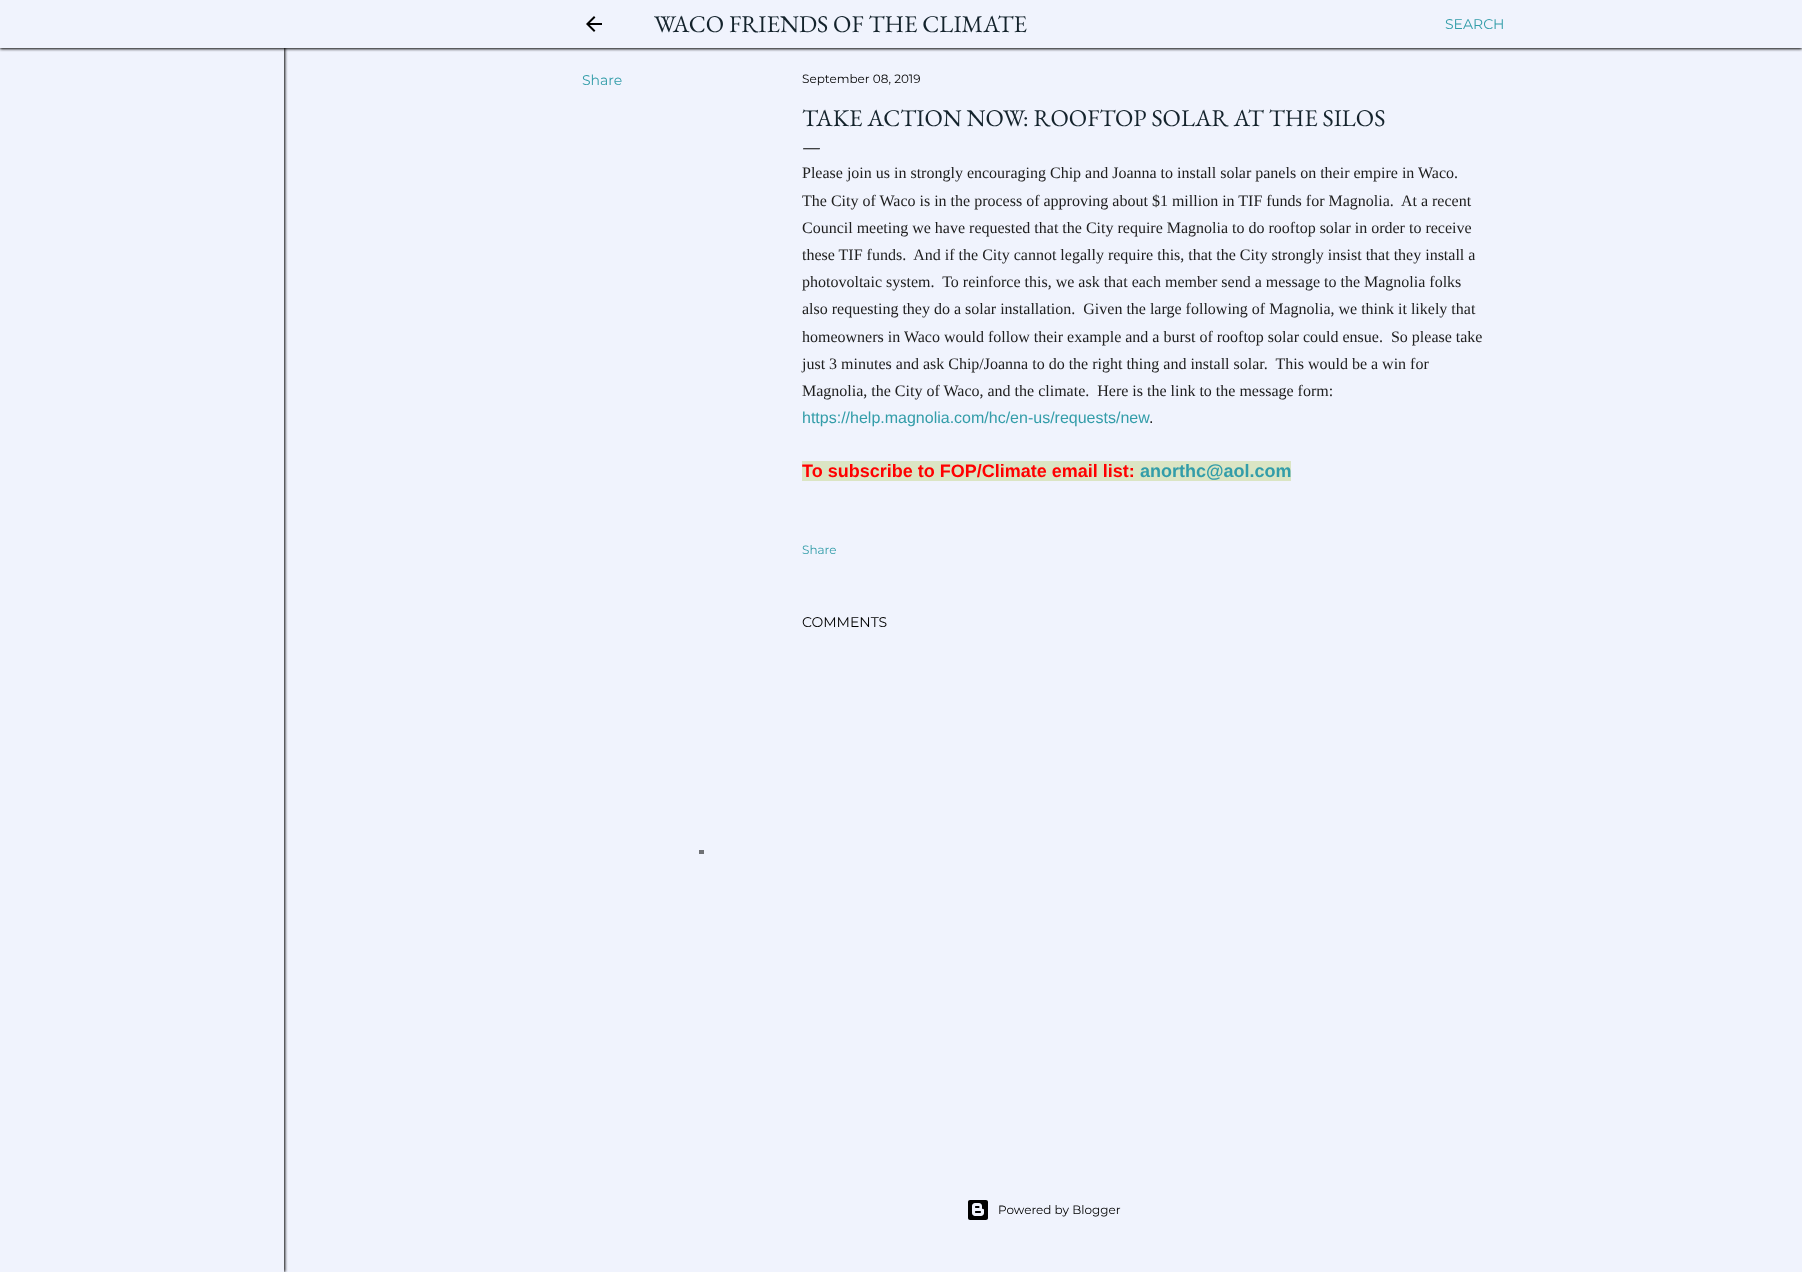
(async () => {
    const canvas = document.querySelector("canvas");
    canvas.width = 1802;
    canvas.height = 1272;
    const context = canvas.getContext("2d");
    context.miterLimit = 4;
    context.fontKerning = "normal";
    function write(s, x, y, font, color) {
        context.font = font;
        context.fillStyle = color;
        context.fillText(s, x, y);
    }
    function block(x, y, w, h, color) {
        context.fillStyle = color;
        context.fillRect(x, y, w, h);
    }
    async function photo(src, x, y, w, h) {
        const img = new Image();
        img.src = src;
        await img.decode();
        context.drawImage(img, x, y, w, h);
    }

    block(0, 0, 1802, 1272, "rgb(240, 243, 253)");
    context.save();
    context.beginPath();
    context.rect(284, 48, 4, 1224);
    context.clip();
    context.fillStyle = "rgb(0, 0, 0)";
    context.filter = "blur(1.5px)";
    context.beginPath();
    context.rect(1, -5, 284, 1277);
    context.fill();
    context.filter = "none";
    context.restore();
    context.fillStyle = "rgb(0, 0, 0)";
    context.filter = "blur(1.5px)";
    context.beginPath();
    context.rect(0, 1, 1802, 48);
    context.fill();
    context.filter = "none";
    block(0, 0, 1802, 48, "rgb(240, 243, 253)");
    await photo("media/1.png", 586, 16, 16, 16);
    write("WACO FRIENDS OF THE CLIMATE", 654, 32, "24px EB Garamond", "rgb(20, 35, 44)");
    write("SEARCH", 1445, 29, "14px Montserrat", "rgb(51, 157, 169)");
    write("Share", 582, 85, "14px Montserrat", "rgb(51, 157, 169)");
    write("September 08, 2019", 802, 83, "12px Montserrat", "rgb(0, 0, 0)");
    write("TAKE ACTION NOW: ROOFTOP SOLAR AT THE SILOS", 802, 126, "24px EB Garamond", "rgb(20, 35, 44)");
    write("—", 802, 153, "20px EB Garamond", "rgb(0, 0, 0)");
    write("Please join us in strongly encouraging Chip and Joanna to install solar panels on their empire in Waco.", 802, 178, "16px Liberation Serif", "rgb(32, 32, 32)");
    write("The City of Waco is in the process of approving about $1 million in TIF funds for Magnolia.  At a recent", 802, 206, "16px Liberation Serif", "rgb(32, 32, 32)");
    write("Council meeting we have requested that the City require Magnolia to do rooftop solar in order to receive", 802, 233, "16px Liberation Serif", "rgb(32, 32, 32)");
    write("these TIF funds.  And if the City cannot legally require this, that the City strongly insist that they install a", 802, 260, "16px Liberation Serif", "rgb(32, 32, 32)");
    write("photovoltaic system.  To reinforce this, we ask that each member send a message to the Magnolia folks", 802, 287, "16px Liberation Serif", "rgb(32, 32, 32)");
    write("also requesting they do a solar installation.  Given the large following of Magnolia, we think it likely that", 802, 314, "16px Liberation Serif", "rgb(32, 32, 32)");
    write("homeowners in Waco would follow their example and a burst of rooftop solar could ensue.  So please take", 802, 342, "16px Liberation Serif", "rgb(32, 32, 32)");
    write("just 3 minutes and ask Chip/Joanna to do the right thing and install solar.  This would be a win for", 802, 369, "16px Liberation Serif", "rgb(32, 32, 32)");
    write("Magnolia, the City of Waco, and the climate.  Here is the link to the message form:", 802, 396, "16px Liberation Serif", "rgb(32, 32, 32)");
    write("https://help.magnolia.com/hc/en-us/requests/new", 802, 423, "16px Liberation Sans", "rgb(51, 157, 169)");
    write(".", 1149, 423, "16px Liberation Sans", "rgb(32, 32, 32)");
    block(802, 461, 489, 20, "rgb(219, 229, 196)");
    write("To subscribe to FOP/Climate email list:", 802, 477, "bold 18px Liberation Sans", "rgb(255, 0, 0)");
    write("anorthc@aol.com", 1140, 477, "bold 18px Liberation Sans", "rgb(51, 157, 169)");
    write("Share", 802, 554, "12px Montserrat", "rgb(51, 157, 169)");
    write("COMMENTS", 802, 627, "14px Montserrat", "rgb(0, 0, 0)");
    await photo("media/2.png", 968, 1200, 20, 20);
    write("Powered by Blogger", 998, 1214, "12px Montserrat", "rgb(0, 0, 0)");
    block(699, 850, 5, 4, "rgb(110, 112, 116)");
})();
